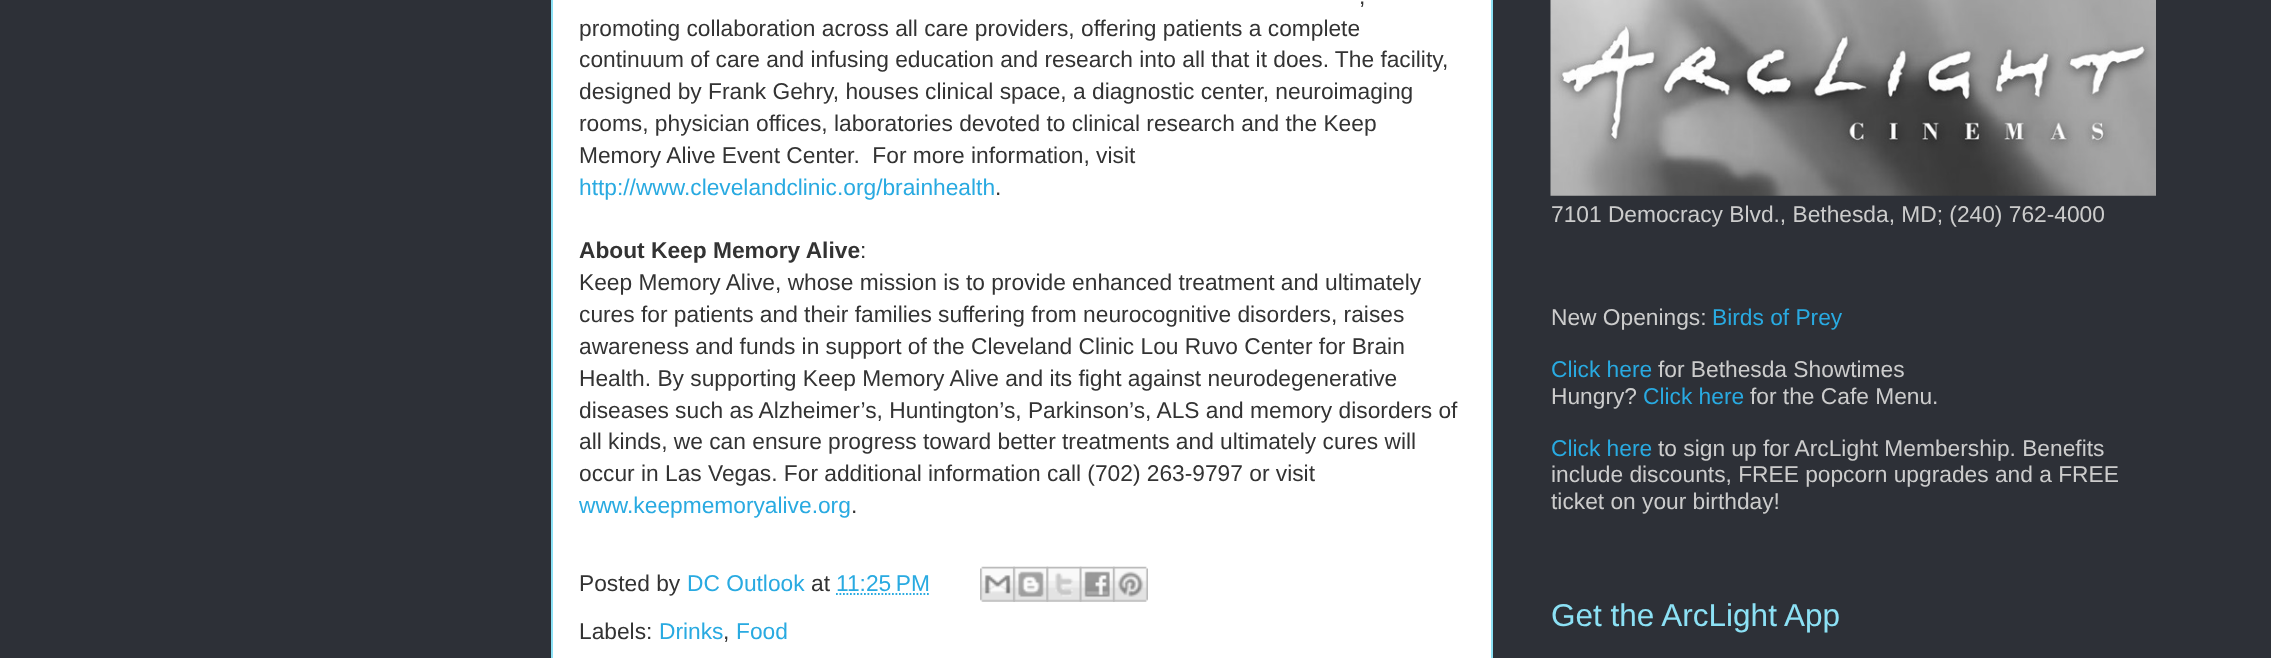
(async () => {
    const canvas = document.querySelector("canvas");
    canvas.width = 2271;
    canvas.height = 658;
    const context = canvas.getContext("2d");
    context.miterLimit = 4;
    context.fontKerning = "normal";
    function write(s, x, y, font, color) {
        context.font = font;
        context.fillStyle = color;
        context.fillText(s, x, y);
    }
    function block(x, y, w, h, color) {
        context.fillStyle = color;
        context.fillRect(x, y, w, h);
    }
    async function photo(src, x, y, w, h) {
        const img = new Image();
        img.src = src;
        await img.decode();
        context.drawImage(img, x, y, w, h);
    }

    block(0, 0, 2271, 658, "rgb(45, 48, 55)");
    context.fillStyle = "rgb(255, 255, 255)";
    context.beginPath();
    context.rect(552, -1, 940, 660);
    context.fill();
    context.strokeStyle = "rgb(140, 225, 245)";
    context.lineWidth = 2;
    context.stroke();
    write(",", 1359, 4, "22.75px Liberation Sans", "rgb(51, 51, 51)");
    write("promoting collaboration across all care providers, offering patients a complete", 579, 36, "22.75px Liberation Sans", "rgb(51, 51, 51)");
    write("continuum of care and infusing education and research into all that it does. The facility,", 579, 67, "22.75px Liberation Sans", "rgb(51, 51, 51)");
    write("designed by Frank Gehry, houses clinical space, a diagnostic center, neuroimaging", 579, 99, "22.75px Liberation Sans", "rgb(51, 51, 51)");
    write("rooms, physician offices, laboratories devoted to clinical research and the Keep", 579, 131, "22.75px Liberation Sans", "rgb(51, 51, 51)");
    write("Memory Alive Event Center.  For more information, visit", 579, 163, "22.75px Liberation Sans", "rgb(51, 51, 51)");
    write("http://www.clevelandclinic.org/brainhealth", 579, 195, "22.75px Liberation Sans", "rgb(41, 170, 225)");
    write(".", 995, 195, "22.75px Liberation Sans", "rgb(51, 51, 51)");
    write("About Keep Memory Alive", 579, 258, "bold 22.75px Liberation Sans", "rgb(51, 51, 51)");
    write(":", 860, 258, "22.75px Liberation Sans", "rgb(51, 51, 51)");
    write("Keep Memory Alive, whose mission is to provide enhanced treatment and ultimately", 579, 290, "22.75px Liberation Sans", "rgb(51, 51, 51)");
    write("cures for patients and their families suffering from neurocognitive disorders, raises", 579, 322, "22.75px Liberation Sans", "rgb(51, 51, 51)");
    write("awareness and funds in support of the Cleveland Clinic Lou Ruvo Center for Brain", 579, 354, "22.75px Liberation Sans", "rgb(51, 51, 51)");
    write("Health. By supporting Keep Memory Alive and its fight against neurodegenerative", 579, 386, "22.75px Liberation Sans", "rgb(51, 51, 51)");
    write("diseases such as Alzheimer’s, Huntington’s, Parkinson’s, ALS and memory disorders of", 579, 418, "22.75px Liberation Sans", "rgb(51, 51, 51)");
    write("all kinds, we can ensure progress toward better treatments and ultimately cures will", 579, 449, "22.75px Liberation Sans", "rgb(51, 51, 51)");
    write("occur in Las Vegas. For additional information call (702) 263-9797 or visit", 579, 481, "22.75px Liberation Sans", "rgb(51, 51, 51)");
    write("www.keepmemoryalive.org", 579, 513, "22.75px Liberation Sans", "rgb(41, 170, 225)");
    write(".", 851, 513, "22.75px Liberation Sans", "rgb(51, 51, 51)");
    write("Posted by", 579, 591, "22.75px Liberation Sans", "rgb(51, 51, 51)");
    write("DC Outlook", 687, 591, "22.75px Liberation Sans", "rgb(41, 170, 225)");
    write("at", 811, 591, "22.75px Liberation Sans", "rgb(51, 51, 51)");
    write("11:25 PM", 836, 591, "22.75px Liberation Sans", "rgb(41, 170, 225)");
    context.beginPath();
    context.moveTo(836, 594);
    context.lineTo(930, 594);
    context.strokeStyle = "rgb(41, 170, 225)";
    context.lineWidth = 1.8;
    context.setLineDash([1.75, 1.75]);
    context.stroke();
    await photo("media/1.png", 980, 566, 35, 36);
    await photo("media/2.png", 1013, 566, 36, 36);
    await photo("media/3.png", 1046, 566, 36, 36);
    await photo("media/4.png", 1079, 566, 36, 36);
    await photo("media/5.png", 1113, 566, 35, 36);
    write("Labels:", 579, 639, "22.75px Liberation Sans", "rgb(51, 51, 51)");
    write("Drinks", 659, 639, "22.75px Liberation Sans", "rgb(41, 170, 225)");
    write(",", 723, 639, "22.75px Liberation Sans", "rgb(51, 51, 51)");
    write("Food", 736, 639, "22.75px Liberation Sans", "rgb(41, 170, 225)");
    await photo("media/6.png", 1550, 0, 606, 196);
    write("7101 Democracy Blvd., Bethesda, MD; (240) 762-4000", 1551, 222, "22.75px Liberation Sans", "rgb(204, 204, 204)");
    write("New Openings:", 1551, 325, "22.75px Liberation Sans", "rgb(204, 204, 204)");
    write("Birds of Prey", 1712, 325, "22.75px Liberation Sans", "rgb(41, 170, 225)");
    write("Click here", 1551, 377, "22.75px Liberation Sans", "rgb(41, 170, 225)");
    write("for Bethesda Showtimes", 1658, 377, "22.75px Liberation Sans", "rgb(204, 204, 204)");
    write("Hungry?", 1551, 404, "22.75px Liberation Sans", "rgb(204, 204, 204)");
    write("Click here", 1643, 404, "22.75px Liberation Sans", "rgb(41, 170, 225)");
    write("for the Cafe Menu.", 1750, 404, "22.75px Liberation Sans", "rgb(204, 204, 204)");
    write("Click here", 1551, 456, "22.75px Liberation Sans", "rgb(41, 170, 225)");
    write("to sign up for ArcLight Membership. Benefits", 1658, 456, "22.75px Liberation Sans", "rgb(204, 204, 204)");
    write("include discounts, FREE popcorn upgrades and a FREE", 1551, 482, "22.75px Liberation Sans", "rgb(204, 204, 204)");
    write("ticket on your birthday!", 1551, 509, "22.75px Liberation Sans", "rgb(204, 204, 204)");
    write("Get the ArcLight App", 1551, 626, "31.5px Liberation Sans", "rgb(140, 225, 245)");
})();
